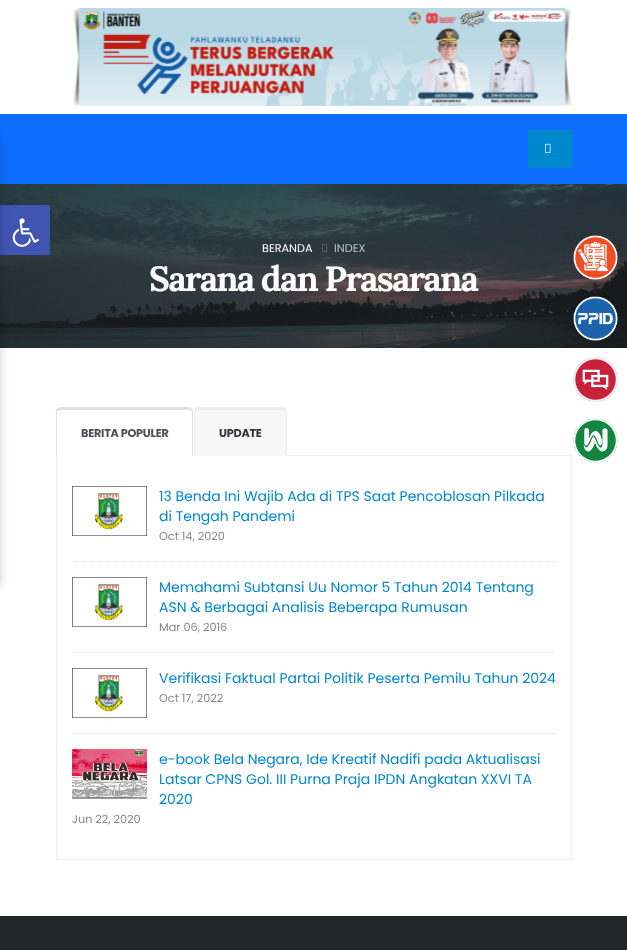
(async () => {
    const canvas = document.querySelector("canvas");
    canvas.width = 627;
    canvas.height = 950;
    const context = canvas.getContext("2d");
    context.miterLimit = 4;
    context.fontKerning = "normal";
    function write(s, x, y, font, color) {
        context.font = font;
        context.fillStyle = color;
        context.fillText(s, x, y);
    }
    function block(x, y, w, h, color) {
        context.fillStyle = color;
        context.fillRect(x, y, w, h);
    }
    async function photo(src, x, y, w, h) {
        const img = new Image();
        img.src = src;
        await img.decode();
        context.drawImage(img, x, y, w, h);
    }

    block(0, 0, 627, 950, "rgb(255, 255, 255)");
    await photo("media/4.png", 0, 184, 627, 164);
    block(0, 205, 50, 50, "rgb(64, 84, 178)");
    block(0, 114, 627, 70, "rgb(13, 110, 253)");
    context.fillStyle = "rgba(0, 0, 0, 0.2)";
    context.filter = "blur(5px)";
    context.beginPath();
    context.rect(-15, 138, 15, 448);
    context.fill();
    context.filter = "none";
    await photo("media/1.png", 12, 218, 27, 29);
    await photo("media/2.png", 73, 8, 499, 98);
    block(528, 130, 44, 38, "rgb(0, 136, 204)");
    await photo("media/3.png", 545, 143, 6, 10);
    write("BERANDA", 262, 252, "11.25px Poppins", "rgb(255, 255, 255)");
    await photo("media/5.png", 322, 244, 5, 8);
    write("INDEX", 334, 252, "11.25px Poppins", "rgb(191, 195, 197)");
    context.letterSpacing = "-1.75px";
    write("Sarana dan Prasarana", 149, 291, "bold 35px Lora", "rgb(255, 255, 255)");
    block(193, 455, 379, 1, "rgb(238, 238, 238)");
    context.fillStyle = "rgb(222, 226, 230)";
    context.beginPath();
    context.moveTo(61, 407);
    context.lineTo(188, 407);
    context.bezierCurveTo(191, 407, 193, 409, 193, 412);
    context.lineTo(193, 456);
    context.lineTo(56, 456);
    context.lineTo(56, 412);
    context.bezierCurveTo(56, 409, 58, 407, 61, 407);
    context.closePath();
    context.moveTo(61, 410);
    context.lineTo(188, 410);
    context.bezierCurveTo(190, 410, 192, 411, 192, 412);
    context.lineTo(192, 456);
    context.lineTo(57, 456);
    context.lineTo(57, 412);
    context.bezierCurveTo(57, 411, 59, 410, 61, 410);
    context.closePath();
    context.fill("evenodd");
    context.letterSpacing = "-0.25px";
    write("BERITA POPULER", 81, 437, "bold 11.25px Poppins", "rgb(73, 80, 87)");
    context.fillStyle = "rgb(247, 247, 247)";
    context.beginPath();
    context.roundRect(194, 407, 93, 49, [5, 5, 0, 0]);
    context.fill();
    context.fillStyle = "rgb(238, 238, 238)";
    context.beginPath();
    context.moveTo(199, 407);
    context.lineTo(282, 407);
    context.bezierCurveTo(285, 407, 287, 409, 287, 412);
    context.lineTo(287, 456);
    context.lineTo(194, 456);
    context.lineTo(194, 412);
    context.bezierCurveTo(194, 409, 196, 407, 199, 407);
    context.closePath();
    context.moveTo(199, 410);
    context.lineTo(282, 410);
    context.bezierCurveTo(284, 410, 286, 411, 286, 412);
    context.lineTo(286, 456);
    context.lineTo(195, 456);
    context.lineTo(195, 412);
    context.bezierCurveTo(195, 411, 197, 410, 199, 410);
    context.closePath();
    context.fill("evenodd");
    write("UPDATE", 219, 437, "bold 11.25px Poppins", "rgb(46, 53, 62)");
    block(571, 456, 1, 404, "rgb(238, 238, 238)");
    block(56, 859, 516, 1, "rgb(238, 238, 238)");
    block(56, 456, 1, 404, "rgb(238, 238, 238)");
    context.beginPath();
    context.moveTo(72, 561.5);
    context.lineTo(556, 561.5);
    context.strokeStyle = "rgb(226, 226, 226)";
    context.setLineDash([1, 1]);
    context.stroke();
    await photo("media/6.png", 72, 486, 75, 50);
    context.letterSpacing = "0px";
    write("13 Benda Ini Wajib Ada di TPS Saat Pencoblosan Pilkada", 159, 501, "14px Poppins", "rgb(0, 136, 204)");
    write("di Tengah Pandemi", 159, 521, "14px Poppins", "rgb(0, 136, 204)");
    write("Oct 14, 2020", 159, 540, "11.25px Poppins", "rgb(136, 136, 136)");
    context.beginPath();
    context.moveTo(72, 652.5);
    context.lineTo(556, 652.5);
    context.stroke();
    await photo("media/6.png", 72, 577, 75, 50);
    write("Memahami Subtansi Uu Nomor 5 Tahun 2014 Tentang", 159, 592, "14px Poppins", "rgb(0, 136, 204)");
    write("ASN & Berbagai Analisis Beberapa Rumusan", 159, 612, "14px Poppins", "rgb(0, 136, 204)");
    write("Mar 06, 2016", 159, 631, "11.25px Poppins", "rgb(136, 136, 136)");
    context.beginPath();
    context.moveTo(72, 733.5);
    context.lineTo(556, 733.5);
    context.stroke();
    await photo("media/6.png", 72, 668, 75, 50);
    write("Verifikasi Faktual Partai Politik Peserta Pemilu Tahun 2024", 159, 683, "14px Poppins", "rgb(0, 136, 204)");
    write("Oct 17, 2022", 159, 702, "11.25px Poppins", "rgb(136, 136, 136)");
    await photo("media/7.png", 72, 749, 75, 50);
    write("e-book Bela Negara, Ide Kreatif Nadifi pada Aktualisasi", 159, 764, "14px Poppins", "rgb(0, 136, 204)");
    write("Latsar CPNS Gol. III Purna Praja IPDN Angkatan XXVI TA", 159, 784, "14px Poppins", "rgb(0, 136, 204)");
    write("2020", 159, 804, "14px Poppins", "rgb(0, 136, 204)");
    write("Jun 22, 2020", 72, 823, "11.25px Poppins", "rgb(136, 136, 136)");
    block(0, 916, 627, 34, "rgb(33, 37, 41)");
    await photo("media/8.png", 573, 235, 45, 45);
    await photo("media/9.png", 573, 296, 45, 45);
    await photo("media/10.png", 573, 357, 45, 45);
    await photo("media/11.png", 573, 418, 45, 45);
})();
